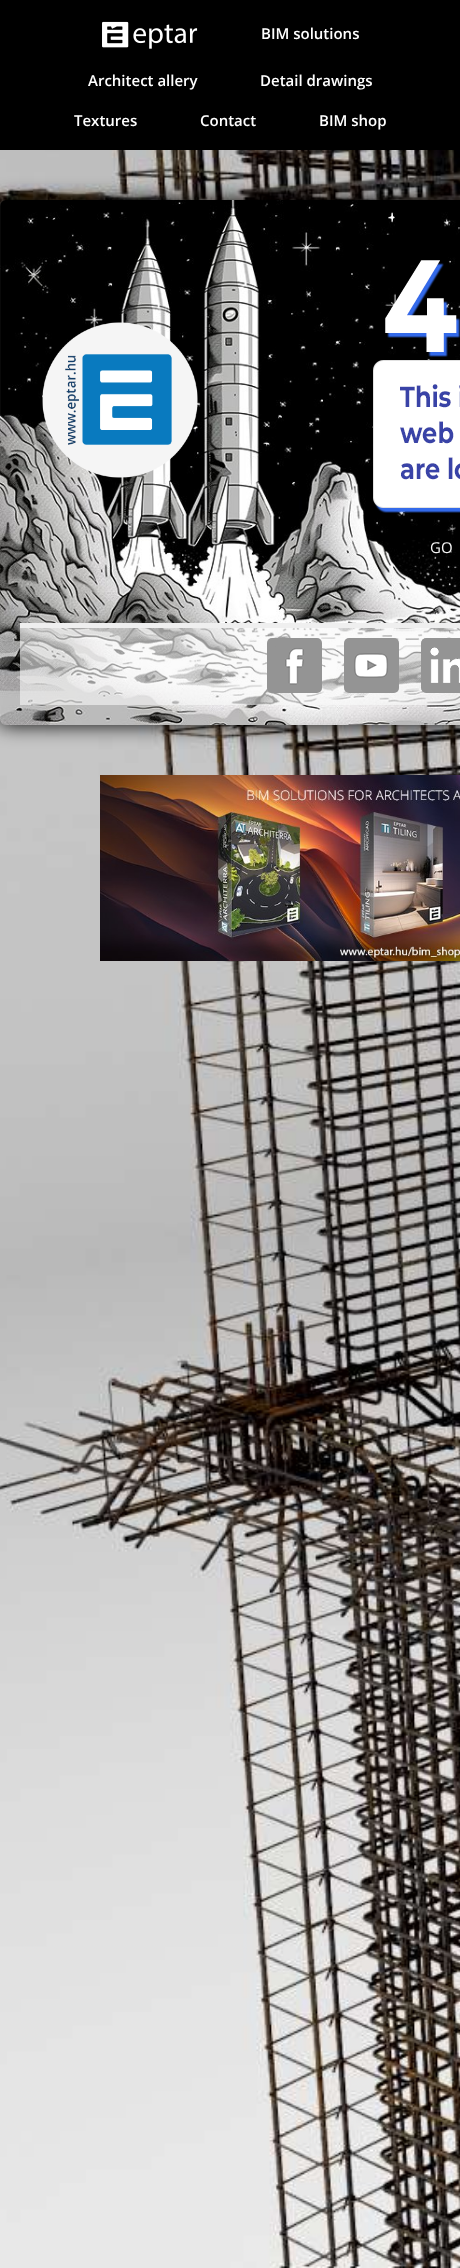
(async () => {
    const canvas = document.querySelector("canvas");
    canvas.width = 460;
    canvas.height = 2268;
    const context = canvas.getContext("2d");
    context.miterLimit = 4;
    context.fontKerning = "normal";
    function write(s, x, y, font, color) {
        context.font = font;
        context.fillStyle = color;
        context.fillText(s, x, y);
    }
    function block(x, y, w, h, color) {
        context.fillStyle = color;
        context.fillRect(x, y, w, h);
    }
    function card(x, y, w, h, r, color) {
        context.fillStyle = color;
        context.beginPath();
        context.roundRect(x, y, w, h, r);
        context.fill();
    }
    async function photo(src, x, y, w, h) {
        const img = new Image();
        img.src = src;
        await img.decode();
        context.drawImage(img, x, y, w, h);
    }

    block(0, 0, 460, 2268, "rgb(255, 255, 255)");
    block(0, 0, 460, 150, "rgb(0, 0, 0)");
    await photo("media/1.png", 102, 21, 96, 28);
    write("BIM solutions", 261, 39, "600 15px Open Sans", "rgb(255, 255, 255)");
    write("Architect allery", 88, 86, "600 15px Open Sans", "rgb(255, 255, 255)");
    write("Detail drawings", 260, 86, "600 15px Open Sans", "rgb(255, 255, 255)");
    write("Textures", 74, 126, "600 15px Open Sans", "rgb(255, 255, 255)");
    write("Contact", 200, 126, "600 15px Open Sans", "rgb(255, 255, 255)");
    write("BIM shop", 319, 126, "600 15px Open Sans", "rgb(255, 255, 255)");
    await photo("media/2.png", 0, 150, 460, 2118);
    context.fillStyle = "rgb(0, 0, 0)";
    context.filter = "blur(10px)";
    context.beginPath();
    context.roundRect(0, 200, 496, 525, 6);
    context.fill();
    context.filter = "none";
    await photo("media/3.png", 0, 200, 460, 525);
    await photo("media/4.png", 42, 322, 156, 156);
    await photo("media/5.png", 373, 260, 87, 253);
    card(395, 526, 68, 42, 3, "rgba(0, 0, 0, 0.24)");
    write("GO", 430, 553, "15px Open Sans", "rgb(246, 246, 246)");
    block(20, 628, 440, 77, "rgba(249, 249, 249, 0.6)");
    block(20, 623, 440, 5, "rgb(239, 239, 239)");
    await photo("media/6.png", 267, 638, 55, 55);
    await photo("media/7.png", 344, 638, 55, 55);
    await photo("media/8.png", 421, 638, 39, 55);
    await photo("media/9.png", 100, 775, 360, 186);
})();
